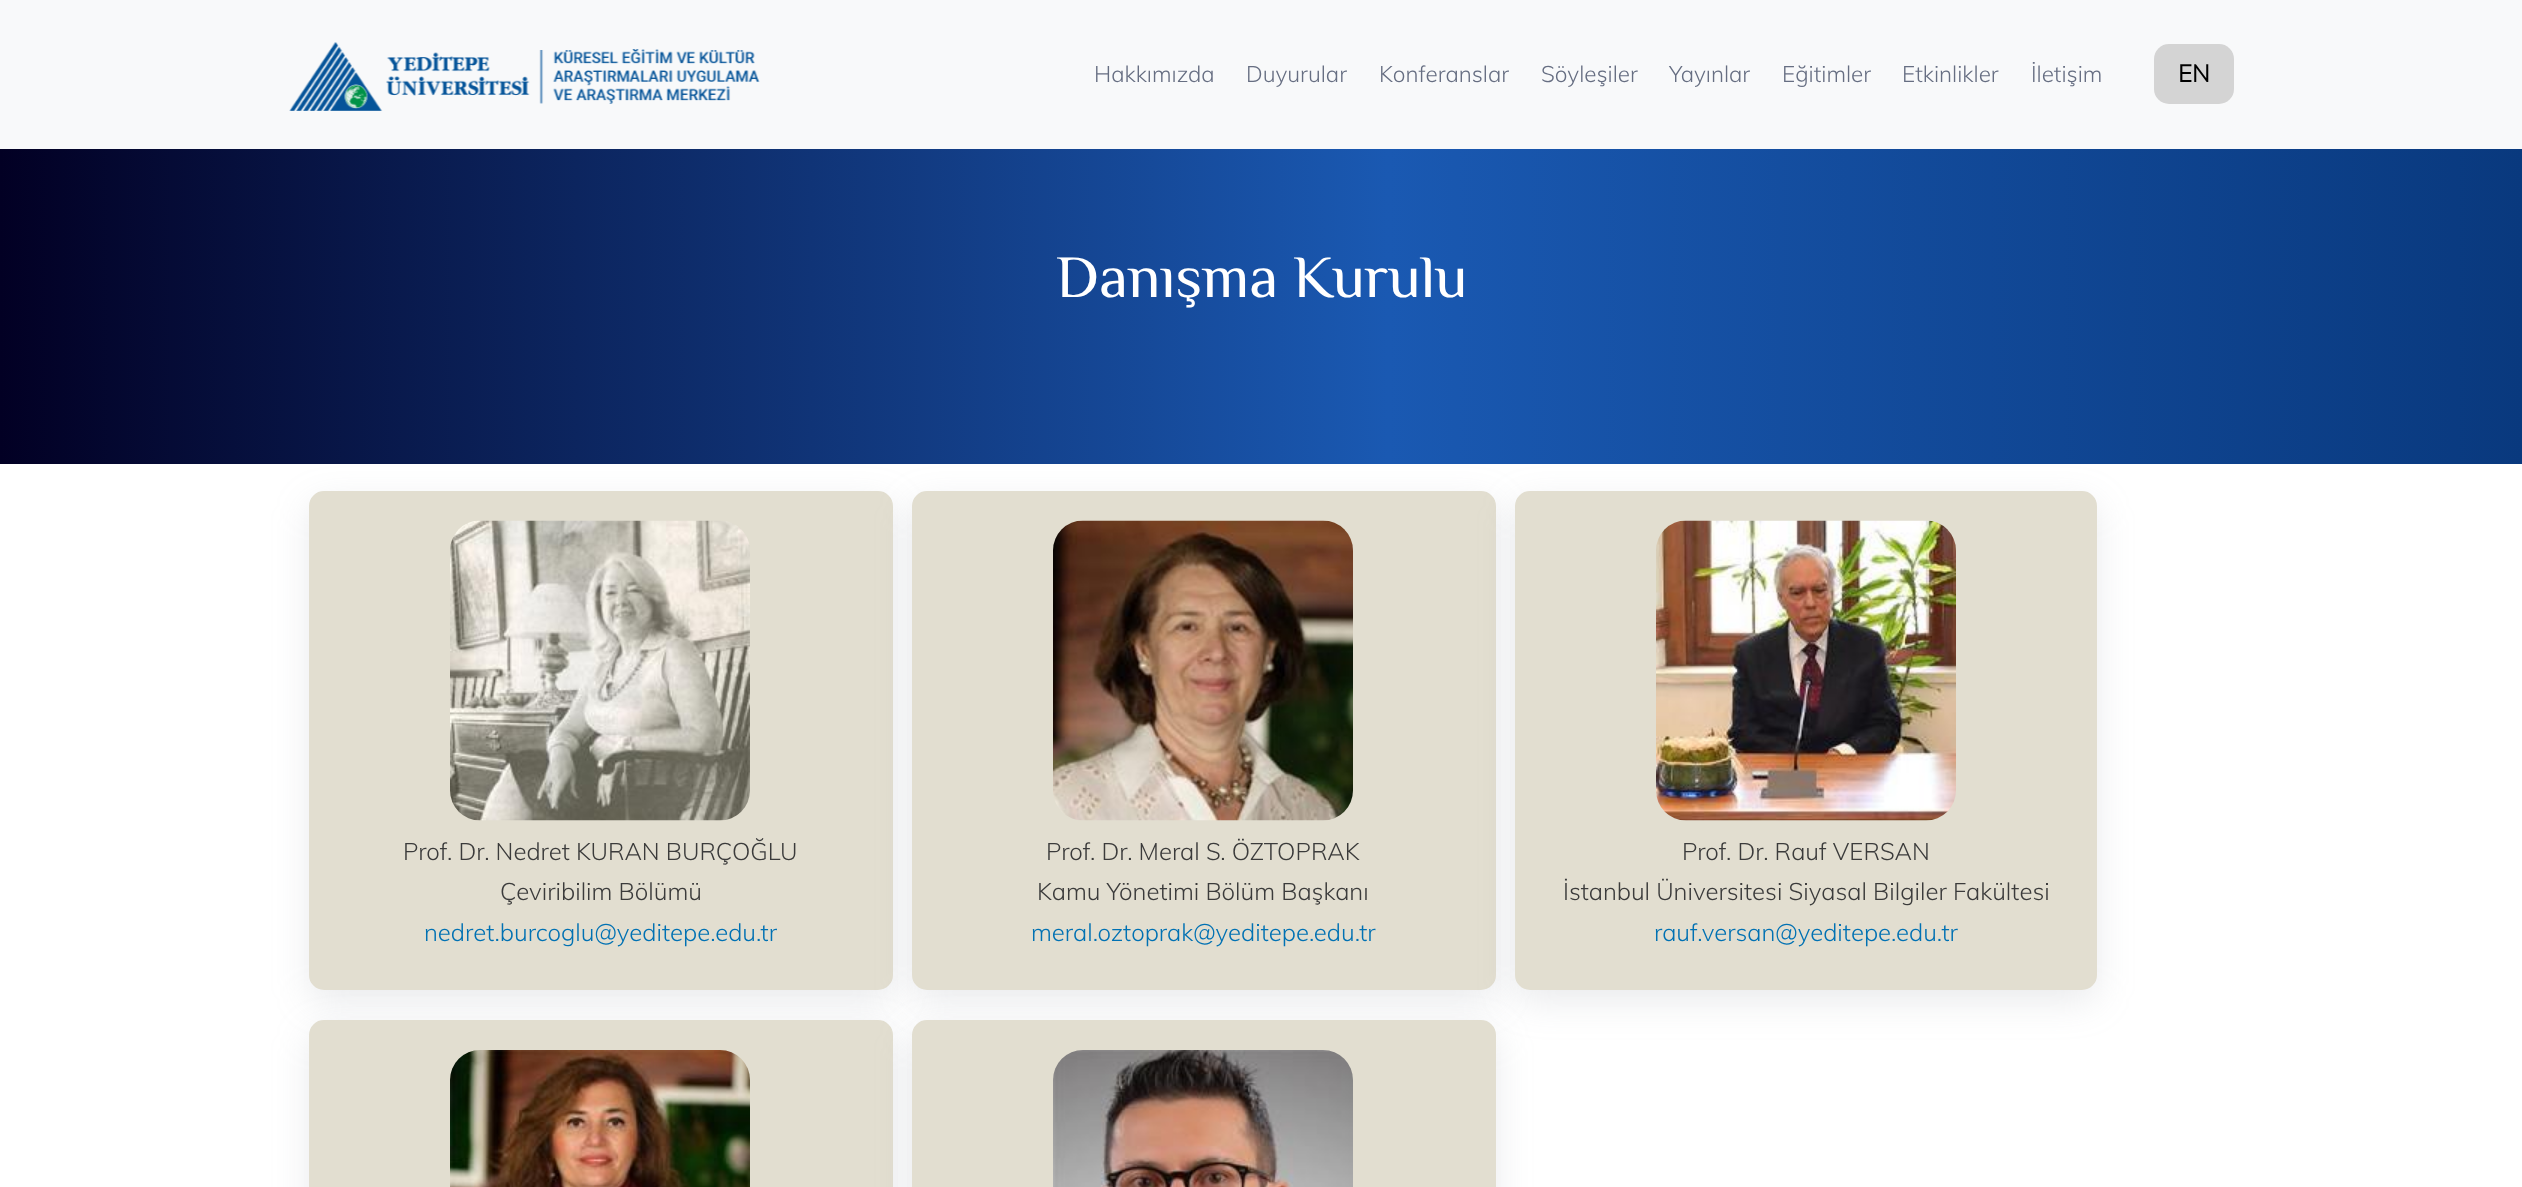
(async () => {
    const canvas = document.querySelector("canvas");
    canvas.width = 2522;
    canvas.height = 1187;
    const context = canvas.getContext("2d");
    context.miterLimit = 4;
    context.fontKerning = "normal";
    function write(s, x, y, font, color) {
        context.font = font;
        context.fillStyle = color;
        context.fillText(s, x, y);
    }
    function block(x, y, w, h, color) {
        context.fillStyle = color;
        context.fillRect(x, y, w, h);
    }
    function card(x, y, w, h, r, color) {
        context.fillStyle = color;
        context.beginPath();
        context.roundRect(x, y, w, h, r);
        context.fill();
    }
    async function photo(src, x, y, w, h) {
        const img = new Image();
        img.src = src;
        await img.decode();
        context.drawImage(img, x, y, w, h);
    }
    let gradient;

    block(0, 0, 2522, 1187, "rgb(255, 255, 255)");
    block(0, 0, 2522, 149, "rgb(248, 249, 250)");
    await photo("media/1.png", 289, 42, 471, 69);
    write("Hakkımızda", 1094, 82, "300 22.5px Muli", "rgb(102, 110, 130)");
    write("Duyurular", 1246, 82, "300 22.5px Muli", "rgb(102, 110, 130)");
    write("Konferanslar", 1379, 82, "300 22.5px Muli", "rgb(102, 110, 130)");
    write("Söyleşiler", 1541, 82, "300 22.5px Muli", "rgb(102, 110, 130)");
    write("Yayınlar", 1669, 82, "300 22.5px Muli", "rgb(102, 110, 130)");
    write("Eğitimler", 1782, 82, "300 22.5px Muli", "rgb(102, 110, 130)");
    write("Etkinlikler", 1902, 82, "300 22.5px Muli", "rgb(102, 110, 130)");
    write("İletişim", 2031, 82, "300 22.5px Muli", "rgb(102, 110, 130)");
    card(2154, 44, 80, 60, 15, "rgb(212, 212, 212)");
    write("EN", 2178, 82, "bold 24px Muli", "rgb(0, 0, 0)");
    gradient = context.createLinearGradient(0, 278, 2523, 277);
    gradient.addColorStop(0, "rgb(2, 0, 36)");
    gradient.addColorStop(0.55, "rgb(26, 89, 178)");
    gradient.addColorStop(1, "rgb(9, 57, 126)");
    context.fillStyle = gradient;
    context.fillRect(0, 149, 2522, 315);
    write("Danışma Kurulu", 1056, 297, "60px Philosopher", "rgb(255, 255, 255)");
    context.fillStyle = "rgba(149, 157, 165, 0.2)";
    context.filter = "blur(18px)";
    context.beginPath();
    context.roundRect(309, 503, 584, 499, 15);
    context.fill();
    context.filter = "none";
    context.fillStyle = "rgb(226, 222, 208)";
    context.beginPath();
    context.roundRect(310, 492, 582, 497, 14);
    context.fill();
    context.strokeStyle = "rgb(226, 222, 208)";
    context.lineWidth = 2;
    context.stroke();
    await photo("media/2.png", 450, 520, 300, 301);
    write("Prof. Dr. Nedret KURAN BURÇOĞLU", 403, 860, "300 24px Muli", "rgb(59, 59, 59)");
    write("Çeviribilim Bölümü", 500, 900, "300 24px Muli", "rgb(59, 59, 59)");
    write("nedret.burcoglu@yeditepe.edu.tr", 424, 941, "300 24px Muli", "rgb(0, 113, 179)");
    context.fillStyle = "rgba(149, 157, 165, 0.2)";
    context.filter = "blur(18px)";
    context.beginPath();
    context.roundRect(912, 503, 584, 499, 15);
    context.fill();
    context.filter = "none";
    context.fillStyle = "rgb(226, 222, 208)";
    context.beginPath();
    context.roundRect(913, 492, 582, 497, 14);
    context.fill();
    context.stroke();
    await photo("media/3.png", 1053, 520, 300, 301);
    write("Prof. Dr. Meral S. ÖZTOPRAK", 1046, 860, "300 24px Muli", "rgb(59, 59, 59)");
    write("Kamu Yönetimi Bölüm Başkanı", 1037, 900, "300 24px Muli", "rgb(59, 59, 59)");
    write("meral.oztoprak@yeditepe.edu.tr", 1031, 941, "300 24px Muli", "rgb(0, 113, 179)");
    context.fillStyle = "rgba(149, 157, 165, 0.2)";
    context.filter = "blur(18px)";
    context.beginPath();
    context.roundRect(1515, 503, 582, 499, 15);
    context.fill();
    context.filter = "none";
    context.fillStyle = "rgb(226, 222, 208)";
    context.beginPath();
    context.roundRect(1516, 492, 580, 497, 14);
    context.fill();
    context.stroke();
    await photo("media/4.png", 1656, 520, 300, 301);
    write("Prof. Dr. Rauf VERSAN", 1682, 860, "300 24px Muli", "rgb(59, 59, 59)");
    write("İstanbul Üniversitesi Siyasal Bilgiler Fakültesi", 1563, 900, "300 24px Muli", "rgb(59, 59, 59)");
    write("rauf.versan@yeditepe.edu.tr", 1654, 941, "300 24px Muli", "rgb(0, 113, 179)");
    context.fillStyle = "rgba(149, 157, 165, 0.2)";
    context.filter = "blur(18px)";
    context.beginPath();
    context.roundRect(309, 1032, 584, 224, 15);
    context.fill();
    context.filter = "none";
    context.fillStyle = "rgb(226, 222, 208)";
    context.beginPath();
    context.roundRect(310, 1021, 582, 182, 14);
    context.fill();
    context.stroke();
    await photo("media/5.png", 450, 1050, 300, 137);
    context.fillStyle = "rgba(149, 157, 165, 0.2)";
    context.filter = "blur(18px)";
    context.beginPath();
    context.roundRect(912, 1032, 584, 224, 15);
    context.fill();
    context.filter = "none";
    context.fillStyle = "rgb(226, 222, 208)";
    context.beginPath();
    context.roundRect(913, 1021, 582, 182, 14);
    context.fill();
    context.stroke();
    await photo("media/6.png", 1053, 1050, 300, 137);
})();
